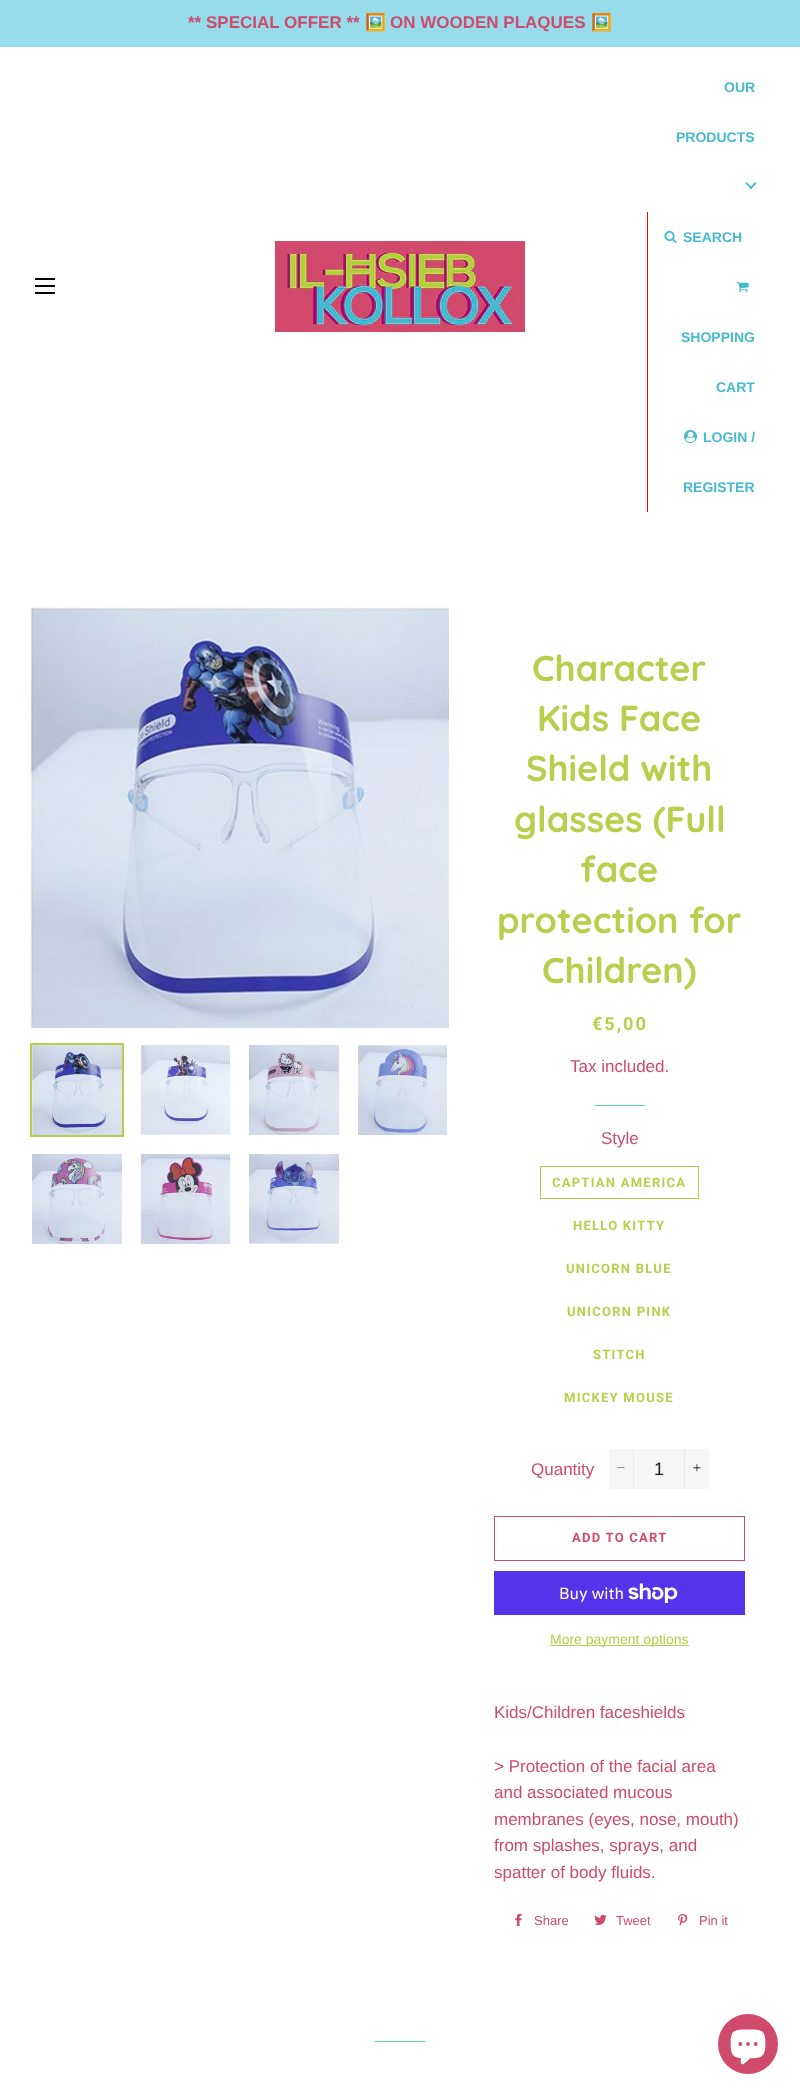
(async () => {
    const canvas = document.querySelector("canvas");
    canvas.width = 800;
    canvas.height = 2095;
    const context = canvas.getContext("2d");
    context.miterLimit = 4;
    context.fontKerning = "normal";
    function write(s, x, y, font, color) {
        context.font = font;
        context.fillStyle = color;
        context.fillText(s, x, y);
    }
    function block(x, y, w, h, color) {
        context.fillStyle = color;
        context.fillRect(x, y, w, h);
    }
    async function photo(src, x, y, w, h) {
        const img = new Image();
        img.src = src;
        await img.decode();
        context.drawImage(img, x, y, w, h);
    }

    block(0, 0, 800, 2095, "rgb(255, 255, 255)");
    block(0, 0, 800, 47, "rgb(150, 220, 234)");
    write("** SPECIAL OFFER **", 188, 28, "bold 17px Liberation Sans", "rgb(206, 75, 109)");
    write("🖼️", 365, 28, "bold 17px Noto Color Emoji", "rgb(206, 75, 109)");
    write("ON WOODEN PLAQUES", 390, 28, "bold 17px Liberation Sans", "rgb(206, 75, 109)");
    write("🖼️", 591, 28, "bold 17px Noto Color Emoji", "rgb(206, 75, 109)");
    block(35, 278, 20, 2, "rgb(0, 0, 0)");
    block(35, 285, 20, 2, "rgb(0, 0, 0)");
    block(35, 292, 20, 2, "rgb(0, 0, 0)");
    await photo("media/1.png", 275, 241, 250, 91);
    write("OUR", 724, 92, "bold 14px Liberation Sans", "rgb(71, 186, 207)");
    write("PRODUCTS", 676, 142, "bold 14px Liberation Sans", "rgb(71, 186, 207)");
    context.beginPath();
    context.moveTo(756.5, 183.5);
    context.lineTo(751, 189);
    context.lineTo(749.5, 188);
    context.lineTo(755, 182);
    context.closePath();
    context.fill();
    context.beginPath();
    context.moveTo(752.5, 188);
    context.lineTo(751, 189);
    context.lineTo(745.5, 183.5);
    context.lineTo(746.5, 182);
    context.closePath();
    context.fill();
    block(647, 212, 1, 300, "rgb(252, 0, 0)");
    await photo("media/2.png", 664, 230, 13, 13);
    write("SEARCH", 683, 242, "bold 14px Liberation Sans", "rgb(71, 186, 207)");
    await photo("media/3.png", 736, 281, 13, 11);
    write("SHOPPING", 681, 342, "bold 14px Liberation Sans", "rgb(71, 186, 207)");
    write("CART", 716, 392, "bold 14px Liberation Sans", "rgb(71, 186, 207)");
    await photo("media/4.png", 684, 430, 13, 13);
    write("LOGIN /", 703, 442, "bold 14px Liberation Sans", "rgb(71, 186, 207)");
    write("REGISTER", 683, 492, "bold 14px Liberation Sans", "rgb(71, 186, 207)");
    await photo("media/5.png", 30, 607, 419, 421);
    context.strokeStyle = "rgb(183, 207, 76)";
    context.lineWidth = 2;
    context.strokeRect(31, 1044, 92, 92);
    await photo("media/6.png", 32, 1045, 90, 90);
    await photo("media/7.png", 141, 1045, 89, 90);
    await photo("media/8.png", 249, 1045, 90, 90);
    await photo("media/9.png", 358, 1045, 89, 90);
    await photo("media/10.png", 32, 1154, 90, 90);
    await photo("media/11.png", 141, 1154, 89, 90);
    await photo("media/12.png", 249, 1154, 90, 90);
    write("Character", 532, 681, "bold 36px Quicksand", "rgb(183, 207, 76)");
    write("Kids Face", 537, 731, "bold 36px Quicksand", "rgb(183, 207, 76)");
    write("Shield with", 526, 781, "bold 36px Quicksand", "rgb(183, 207, 76)");
    write("glasses (Full", 514, 832, "bold 36px Quicksand", "rgb(183, 207, 76)");
    write("face", 580, 882, "bold 36px Quicksand", "rgb(183, 207, 76)");
    write("protection for", 497, 933, "bold 36px Quicksand", "rgb(183, 207, 76)");
    write("Children)", 542, 983, "bold 36px Quicksand", "rgb(183, 207, 76)");
    context.letterSpacing = "2px";
    write("€5,00", 592, 1030, "bold 18px Roboto", "rgb(183, 207, 76)");
    context.letterSpacing = "0px";
    write("Tax included.", 570, 1072, "17px Liberation Sans", "rgb(206, 75, 109)");
    block(595, 1105, 50, 1, "rgb(93, 210, 180)");
    write("Style", 601, 1144, "17px Liberation Sans", "rgb(206, 75, 109)");
    context.lineWidth = 1;
    context.strokeRect(540.5, 1166.5, 158, 32);
    context.letterSpacing = "1.25px";
    write("CAPTIAN AMERICA", 552, 1187, "bold 13px Roboto", "rgb(183, 207, 76)");
    write("HELLO KITTY", 573, 1230, "bold 13px Roboto", "rgb(183, 207, 76)");
    write("UNICORN BLUE", 566, 1273, "bold 13px Roboto", "rgb(183, 207, 76)");
    write("UNICORN PINK", 567, 1316, "bold 13px Roboto", "rgb(183, 207, 76)");
    write("STITCH", 593, 1359, "bold 13px Roboto", "rgb(183, 207, 76)");
    write("MICKEY MOUSE", 564, 1402, "bold 13px Roboto", "rgb(183, 207, 76)");
    context.letterSpacing = "0px";
    write("Quantity", 531, 1475, "17px Liberation Sans", "rgb(206, 75, 109)");
    block(609, 1449, 100, 40, "rgb(246, 246, 246)");
    block(633, 1449, 1, 40, "rgb(233, 233, 233)");
    context.fillStyle = "rgb(28, 29, 29)";
    context.beginPath();
    context.moveTo(617.5, 1467.5);
    context.lineTo(624.5, 1467.5);
    context.lineTo(624.5, 1468);
    context.lineTo(617.5, 1468);
    context.closePath();
    context.fill();
    write("1", 654, 1475, "18px Liberation Sans", "rgb(28, 29, 29)");
    block(684, 1449, 1, 40, "rgb(233, 233, 233)");
    await photo("media/13.png", 693, 1464, 8, 8);
    context.strokeStyle = "rgb(206, 75, 109)";
    context.strokeRect(494.5, 1516.5, 250, 44);
    context.letterSpacing = "1.25px";
    write("ADD TO CART", 572, 1542, "bold 13px Roboto", "rgb(206, 75, 109)");
    block(494, 1571, 251, 44, "rgb(84, 51, 235)");
    context.letterSpacing = "0px";
    write("Buy with", 559, 1599, "16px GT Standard", "rgb(255, 255, 255)");
    await photo("media/14.png", 628, 1583, 50, 20);
    block(550, 1645, 139, 1, "rgb(183, 207, 76)");
    write("More payment options", 550, 1644, "14px Liberation Sans", "rgb(183, 207, 76)");
    write("Kids/Children faceshields", 494, 1718, "17px Liberation Sans", "rgb(206, 75, 109)");
    write("> Protection of the facial area", 494, 1772, "17px Liberation Sans", "rgb(206, 75, 109)");
    write("and associated mucous", 494, 1798, "17px Liberation Sans", "rgb(206, 75, 109)");
    write("membranes (eyes, nose, mouth)", 494, 1825, "17px Liberation Sans", "rgb(206, 75, 109)");
    write("from splashes, sprays, and", 494, 1851, "17px Liberation Sans", "rgb(206, 75, 109)");
    write("spatter of body fluids.", 494, 1878, "17px Liberation Sans", "rgb(206, 75, 109)");
    await photo("media/15.png", 515, 1913, 7, 14);
    write("Share", 534, 1925, "13px Liberation Sans", "rgb(206, 75, 109)");
    await photo("media/16.png", 594, 1914, 13, 11);
    write("Tweet", 616, 1925, "13px Liberation Sans", "rgb(206, 75, 109)");
    await photo("media/17.png", 678, 1914, 10, 12);
    write("Pin it", 699, 1925, "13px Liberation Sans", "rgb(206, 75, 109)");
    block(375, 2041, 50, 1, "rgb(93, 210, 180)");
    context.fillStyle = "rgb(206, 75, 109)";
    context.beginPath();
    context.arc(748, 2044, 30, 0, Math.PI * 2);
    context.fill();
    await photo("media/18.png", 730, 2029, 36, 36);
})();
